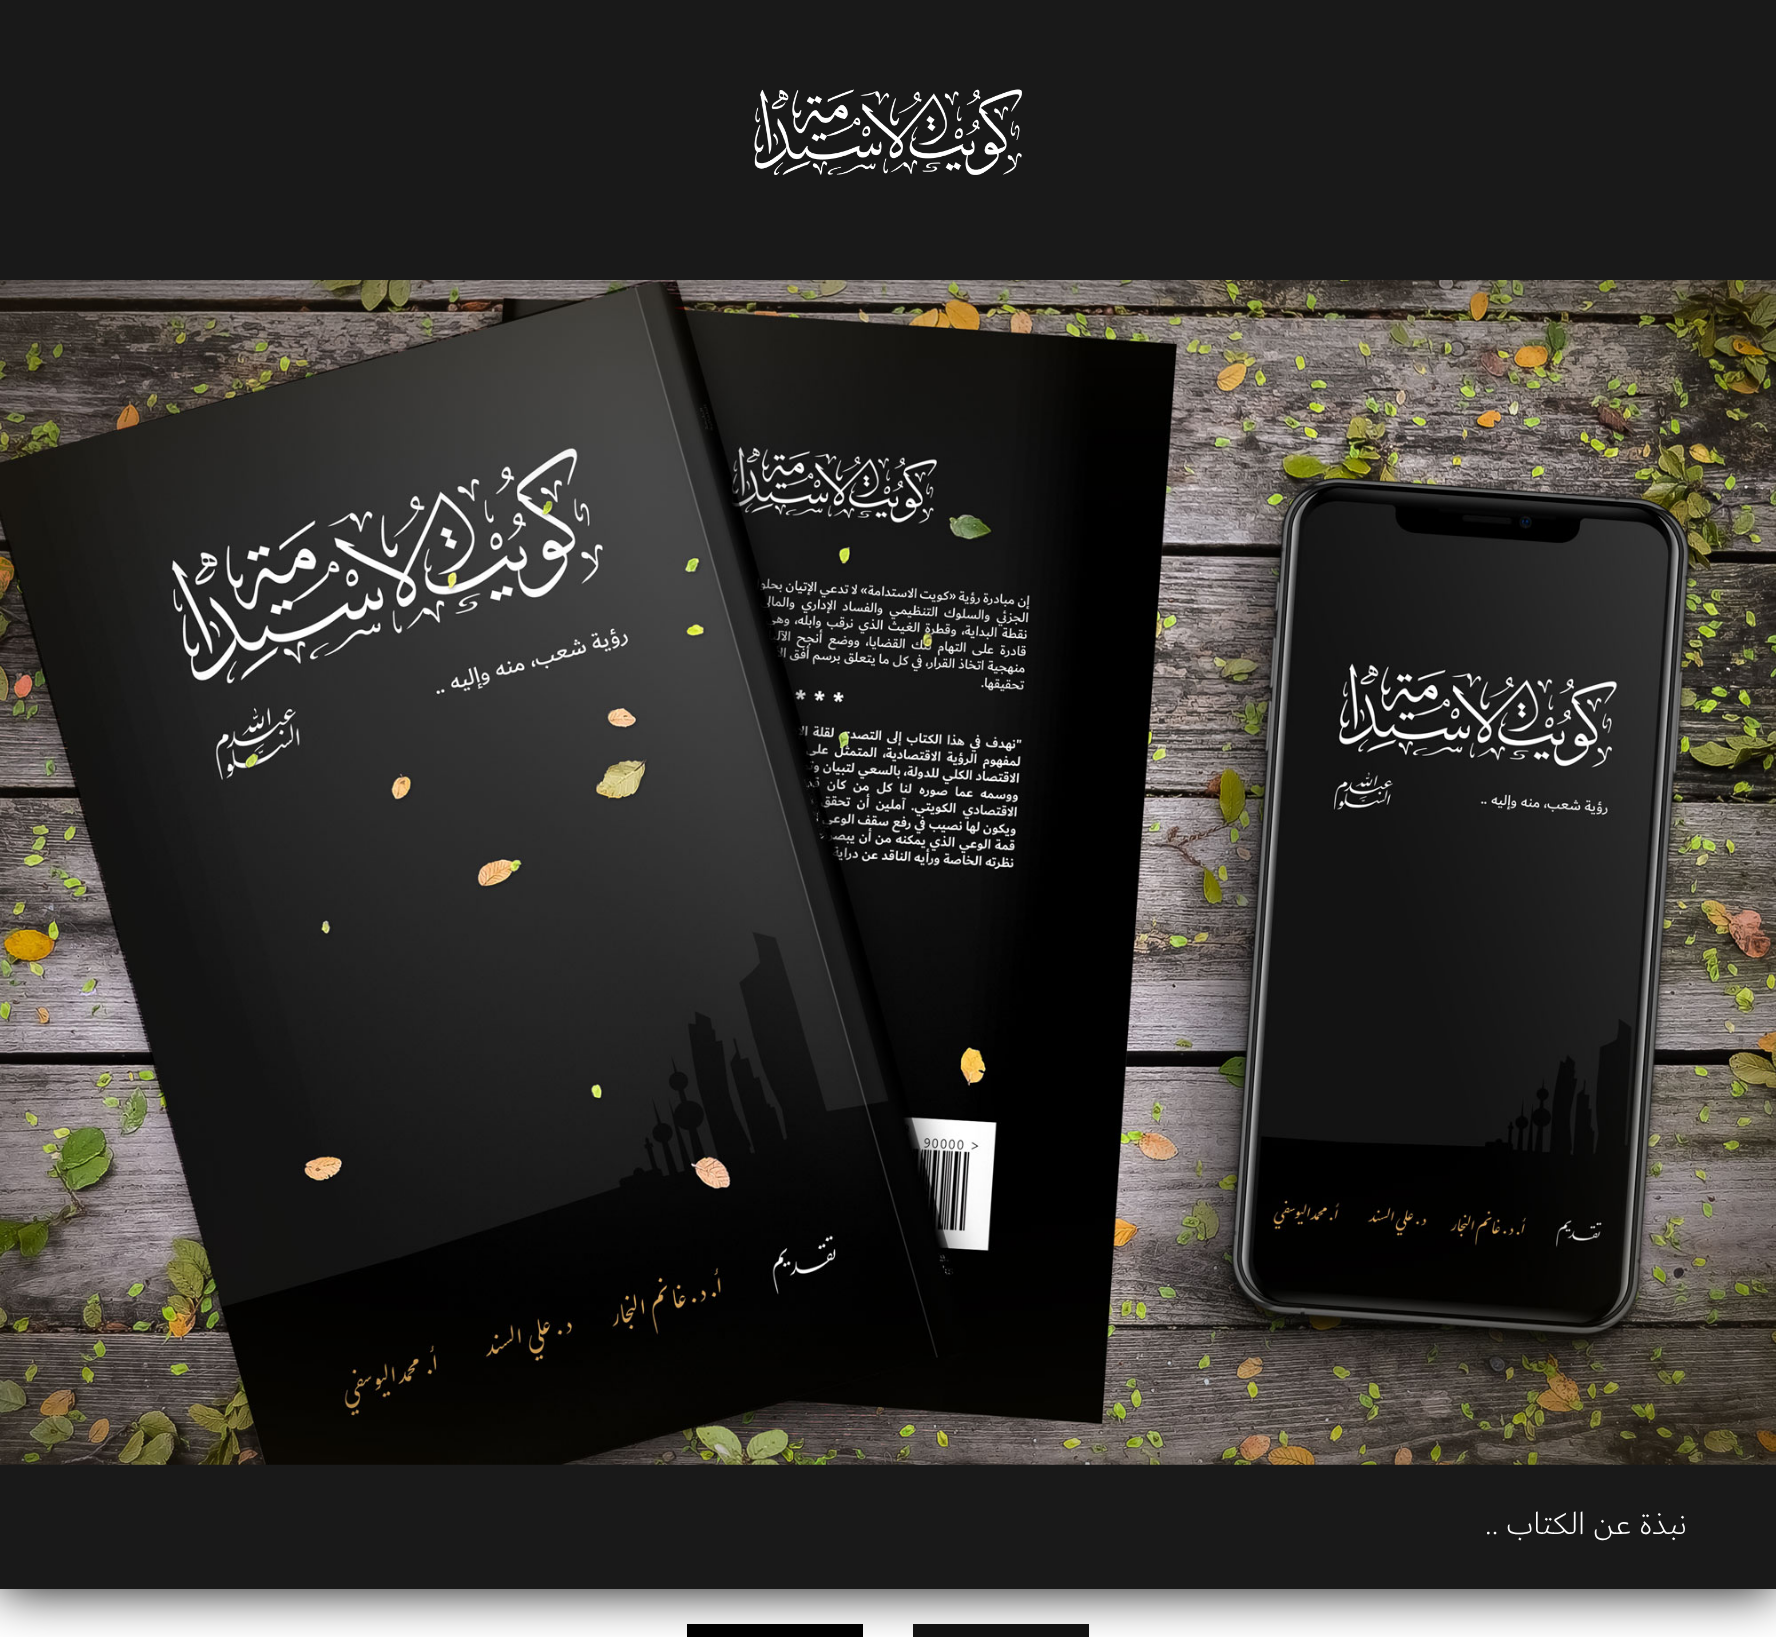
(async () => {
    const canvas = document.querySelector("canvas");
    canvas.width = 1776;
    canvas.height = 1637;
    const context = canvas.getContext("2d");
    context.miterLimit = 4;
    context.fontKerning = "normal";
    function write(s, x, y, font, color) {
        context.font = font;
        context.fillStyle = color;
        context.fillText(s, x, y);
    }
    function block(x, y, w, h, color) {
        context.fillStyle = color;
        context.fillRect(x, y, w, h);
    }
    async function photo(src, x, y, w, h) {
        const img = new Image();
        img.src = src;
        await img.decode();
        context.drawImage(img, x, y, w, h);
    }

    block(0, 0, 1776, 1637, "rgb(255, 255, 255)");
    block(0, 0, 1776, 280, "rgb(25, 25, 25)");
    await photo("media/1.png", 754, 89, 268, 86);
    context.fillStyle = "rgb(0, 0, 0)";
    context.filter = "blur(26px)";
    context.beginPath();
    context.rect(0, 1463, 1776, 126);
    context.fill();
    context.filter = "none";
    block(0, 1464, 1776, 125, "rgb(25, 25, 25)");
    await photo("media/2.png", 0, 280, 1776, 1185);
    context.direction = "rtl";
    write("نبذة عن الكتاب ..", 1687, 1534, "300 33.25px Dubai", "rgb(255, 255, 255)");
    block(913, 1624, 176, 13, "rgb(19, 19, 19)");
    block(687, 1624, 176, 13, "rgb(0, 0, 0)");
})();
